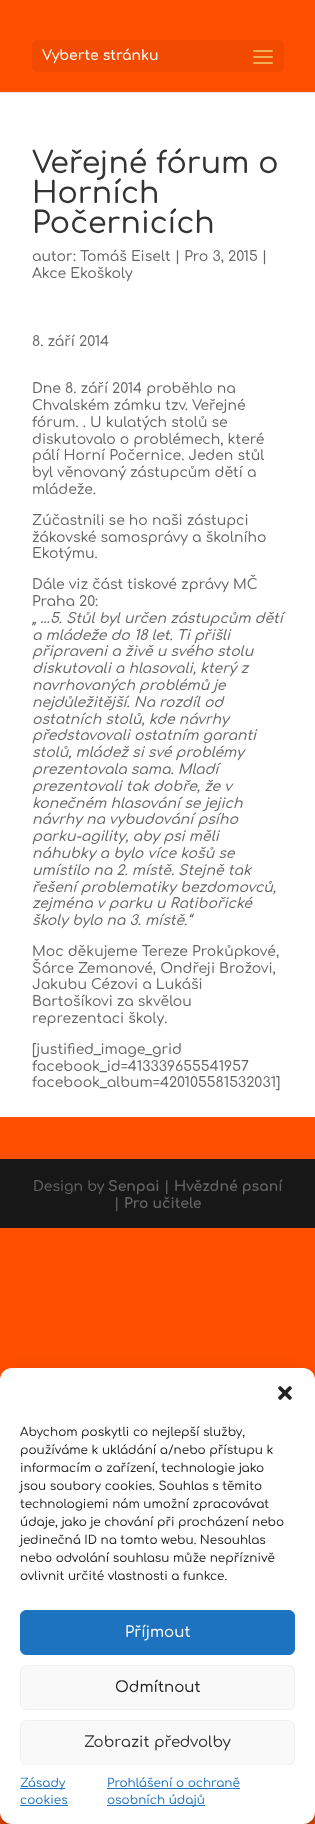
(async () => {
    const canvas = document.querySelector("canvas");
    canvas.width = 315;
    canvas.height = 1824;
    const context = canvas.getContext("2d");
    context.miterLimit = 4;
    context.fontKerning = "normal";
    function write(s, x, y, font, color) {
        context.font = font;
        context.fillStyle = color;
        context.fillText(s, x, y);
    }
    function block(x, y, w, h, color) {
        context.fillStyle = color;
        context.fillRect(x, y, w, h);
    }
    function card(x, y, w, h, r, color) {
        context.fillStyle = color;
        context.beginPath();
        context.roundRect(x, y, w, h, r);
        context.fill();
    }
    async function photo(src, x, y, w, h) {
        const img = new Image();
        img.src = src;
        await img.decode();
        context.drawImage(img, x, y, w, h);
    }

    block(0, 0, 315, 1824, "rgb(255, 79, 0)");
    block(0, 92, 315, 1, "rgb(230, 230, 230)");
    card(32, 40, 252, 32, 5, "rgb(242, 75, 0)");
    write("Vyberte stránku", 42, 60, "600 14px Comfortaa", "rgb(255, 255, 255)");
    await photo("media/1.png", 253, 50, 20, 14);
    block(0, 93, 315, 1024, "rgb(255, 255, 255)");
    write("Veřejné fórum o", 32, 173, "500 30px Comfortaa", "rgb(51, 51, 51)");
    write("Horních", 32, 203, "500 30px Comfortaa", "rgb(51, 51, 51)");
    write("Počernicích", 32, 233, "500 30px Comfortaa", "rgb(51, 51, 51)");
    write("autor: Tomáš Eiselt | Pro 3, 2015 |", 32, 261, "500 14px Comfortaa", "rgb(102, 102, 102)");
    write("Akce Ekoškoly", 32, 278, "500 14px Comfortaa", "rgb(102, 102, 102)");
    write("8. září 2014", 32, 346, "500 14px Comfortaa", "rgb(102, 102, 102)");
    write("Dne 8. září 2014 proběhlo na", 32, 393, "500 14px Comfortaa", "rgb(102, 102, 102)");
    write("Chvalském zámku tzv. Veřejné", 32, 410, "500 14px Comfortaa", "rgb(102, 102, 102)");
    write("fórum. . U kulatých stolů se", 32, 427, "500 14px Comfortaa", "rgb(102, 102, 102)");
    write("diskutovalo o problémech, které", 32, 444, "500 14px Comfortaa", "rgb(102, 102, 102)");
    write("pálí Horní Počernice. Jeden stůl", 32, 460, "500 14px Comfortaa", "rgb(102, 102, 102)");
    write("byl věnovaný zástupcům dětí a", 32, 477, "500 14px Comfortaa", "rgb(102, 102, 102)");
    write("mládeže.", 32, 494, "500 14px Comfortaa", "rgb(102, 102, 102)");
    write("Zúčastnili se ho naši zástupci", 32, 525, "500 14px Comfortaa", "rgb(102, 102, 102)");
    write("žákovské samosprávy a školního", 32, 542, "500 14px Comfortaa", "rgb(102, 102, 102)");
    write("Ekotýmu.", 32, 558, "500 14px Comfortaa", "rgb(102, 102, 102)");
    write("Dále viz část tiskové zprávy MČ", 32, 589, "500 14px Comfortaa", "rgb(102, 102, 102)");
    write("Praha 20:", 32, 606, "500 14px Comfortaa", "rgb(102, 102, 102)");
    write("„ …5. Stůl byl určen zástupcům dětí", 32, 623, "italic 500 14px Comfortaa", "rgb(102, 102, 102)");
    write("a mládeže do 18 let. Ti přišli", 32, 640, "italic 500 14px Comfortaa", "rgb(102, 102, 102)");
    write("připraveni a živě u svého stolu", 32, 656, "italic 500 14px Comfortaa", "rgb(102, 102, 102)");
    write("diskutovali a hlasovali, který z", 32, 673, "italic 500 14px Comfortaa", "rgb(102, 102, 102)");
    write("navrhovaných problémů je", 32, 690, "italic 500 14px Comfortaa", "rgb(102, 102, 102)");
    write("nejdůležitější. Na rozdíl od", 32, 707, "italic 500 14px Comfortaa", "rgb(102, 102, 102)");
    write("ostatních stolů, kde návrhy", 32, 724, "italic 500 14px Comfortaa", "rgb(102, 102, 102)");
    write("představovali ostatním garanti", 32, 740, "italic 500 14px Comfortaa", "rgb(102, 102, 102)");
    write("stolů, mládež si své problémy", 32, 757, "italic 500 14px Comfortaa", "rgb(102, 102, 102)");
    write("prezentovala sama. Mladí", 32, 774, "italic 500 14px Comfortaa", "rgb(102, 102, 102)");
    write("prezentovali tak dobře, že v", 32, 791, "italic 500 14px Comfortaa", "rgb(102, 102, 102)");
    write("konečném hlasování se jejich", 32, 808, "italic 500 14px Comfortaa", "rgb(102, 102, 102)");
    write("návrhy na vybudování psího", 32, 824, "italic 500 14px Comfortaa", "rgb(102, 102, 102)");
    write("parku-agility, aby psi měli", 32, 841, "italic 500 14px Comfortaa", "rgb(102, 102, 102)");
    write("náhubky a bylo více košů se", 32, 858, "italic 500 14px Comfortaa", "rgb(102, 102, 102)");
    write("umístilo na 2. místě. Stejně tak", 32, 875, "italic 500 14px Comfortaa", "rgb(102, 102, 102)");
    write("řešení problematiky bezdomovců,", 32, 892, "italic 500 14px Comfortaa", "rgb(102, 102, 102)");
    write("zejména v parku u Ratibořické", 32, 908, "italic 500 14px Comfortaa", "rgb(102, 102, 102)");
    write("školy bylo na 3. místě.“", 32, 925, "italic 500 14px Comfortaa", "rgb(102, 102, 102)");
    write("Moc děkujeme Tereze Prokůpkové,", 32, 956, "500 14px Comfortaa", "rgb(102, 102, 102)");
    write("Šárce Zemanové, Ondřeji Brožovi,", 32, 973, "500 14px Comfortaa", "rgb(102, 102, 102)");
    write("Jakubu Cézovi a Lukáši", 32, 989, "500 14px Comfortaa", "rgb(102, 102, 102)");
    write("Bartošíkovi za skvělou", 32, 1006, "500 14px Comfortaa", "rgb(102, 102, 102)");
    write("reprezentaci školy.", 32, 1023, "500 14px Comfortaa", "rgb(102, 102, 102)");
    write("[justified_image_grid", 32, 1054, "500 14px Comfortaa", "rgb(102, 102, 102)");
    write("facebook_id=413339655541957", 32, 1071, "500 14px Comfortaa", "rgb(102, 102, 102)");
    write("facebook_album=420105581532031]", 32, 1087, "500 14px Comfortaa", "rgb(102, 102, 102)");
    block(0, 1159, 315, 69, "rgb(23, 23, 23)");
    write("Design by", 33, 1191, "500 14px Comfortaa", "rgb(102, 102, 102)");
    write("Senpai", 108, 1191, "bold 14px Comfortaa", "rgb(102, 102, 102)");
    write("|", 164, 1191, "500 14px Comfortaa", "rgb(102, 102, 102)");
    write("Hvězdné psaní", 174, 1191, "bold 14px Comfortaa", "rgb(102, 102, 102)");
    write("|", 114, 1208, "500 14px Comfortaa", "rgb(102, 102, 102)");
    write("Pro učitele", 124, 1208, "bold 14px Comfortaa", "rgb(102, 102, 102)");
    context.fillStyle = "rgba(0, 0, 0, 0.23)";
    context.filter = "blur(3px)";
    context.beginPath();
    context.roundRect(0, 1374, 315, 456, 12);
    context.fill();
    context.filter = "none";
    context.fillStyle = "rgba(0, 0, 0, 0.19)";
    context.filter = "blur(10px)";
    context.beginPath();
    context.roundRect(0, 1378, 315, 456, 12);
    context.fill();
    context.filter = "none";
    card(0, 1368, 315, 456, 12, "rgb(255, 255, 255)");
    await photo("media/2.png", 278, 1386, 14, 14);
    write("Abychom poskytli co nejlepší služby,", 20, 1436, "500 12px Comfortaa", "rgb(34, 34, 34)");
    write("používáme k ukládání a/nebo přístupu k", 20, 1454, "500 12px Comfortaa", "rgb(34, 34, 34)");
    write("informacím o zařízení, technologie jako", 20, 1472, "500 12px Comfortaa", "rgb(34, 34, 34)");
    write("jsou soubory cookies. Souhlas s těmito", 20, 1490, "500 12px Comfortaa", "rgb(34, 34, 34)");
    write("technologiemi nám umožní zpracovávat", 20, 1508, "500 12px Comfortaa", "rgb(34, 34, 34)");
    write("údaje, jako je chování při procházení nebo", 20, 1526, "500 12px Comfortaa", "rgb(34, 34, 34)");
    write("jedinečná ID na tomto webu. Nesouhlas", 20, 1544, "500 12px Comfortaa", "rgb(34, 34, 34)");
    write("nebo odvolání souhlasu může nepříznivě", 20, 1562, "500 12px Comfortaa", "rgb(34, 34, 34)");
    write("ovlivnit určité vlastnosti a funkce.", 20, 1580, "500 12px Comfortaa", "rgb(34, 34, 34)");
    context.fillStyle = "rgb(30, 115, 190)";
    context.beginPath();
    context.roundRect(20.5, 1610.5, 274, 44, 5.5);
    context.fill();
    context.strokeStyle = "rgb(30, 115, 190)";
    context.stroke();
    write("Příjmout", 125, 1637, "500 15px Comfortaa", "rgb(255, 255, 255)");
    context.fillStyle = "rgb(249, 249, 249)";
    context.beginPath();
    context.roundRect(20.5, 1665.5, 274, 44, 5.5);
    context.fill();
    context.strokeStyle = "rgb(242, 242, 242)";
    context.stroke();
    write("Odmítnout", 115, 1692, "500 15px Comfortaa", "rgb(34, 34, 34)");
    context.fillStyle = "rgb(249, 249, 249)";
    context.beginPath();
    context.roundRect(20.5, 1720.5, 274, 44, 5.5);
    context.fill();
    context.stroke();
    write("Zobrazit předvolby", 84, 1747, "500 15px Comfortaa", "rgb(51, 51, 51)");
    block(20, 1788, 45, 1, "rgb(30, 115, 190)");
    write("Zásady", 20, 1787, "500 12px Comfortaa", "rgb(30, 115, 190)");
    write("cookies", 20, 1804, "500 12px Comfortaa", "rgb(30, 115, 190)");
    block(20, 1805, 48, 1, "rgb(30, 115, 190)");
    write("Prohlášení o ochraně", 107, 1787, "500 12px Comfortaa", "rgb(30, 115, 190)");
    block(107, 1788, 133, 1, "rgb(30, 115, 190)");
    block(107, 1805, 98, 1, "rgb(30, 115, 190)");
    write("osobních údajů", 107, 1804, "500 12px Comfortaa", "rgb(30, 115, 190)");
})();
